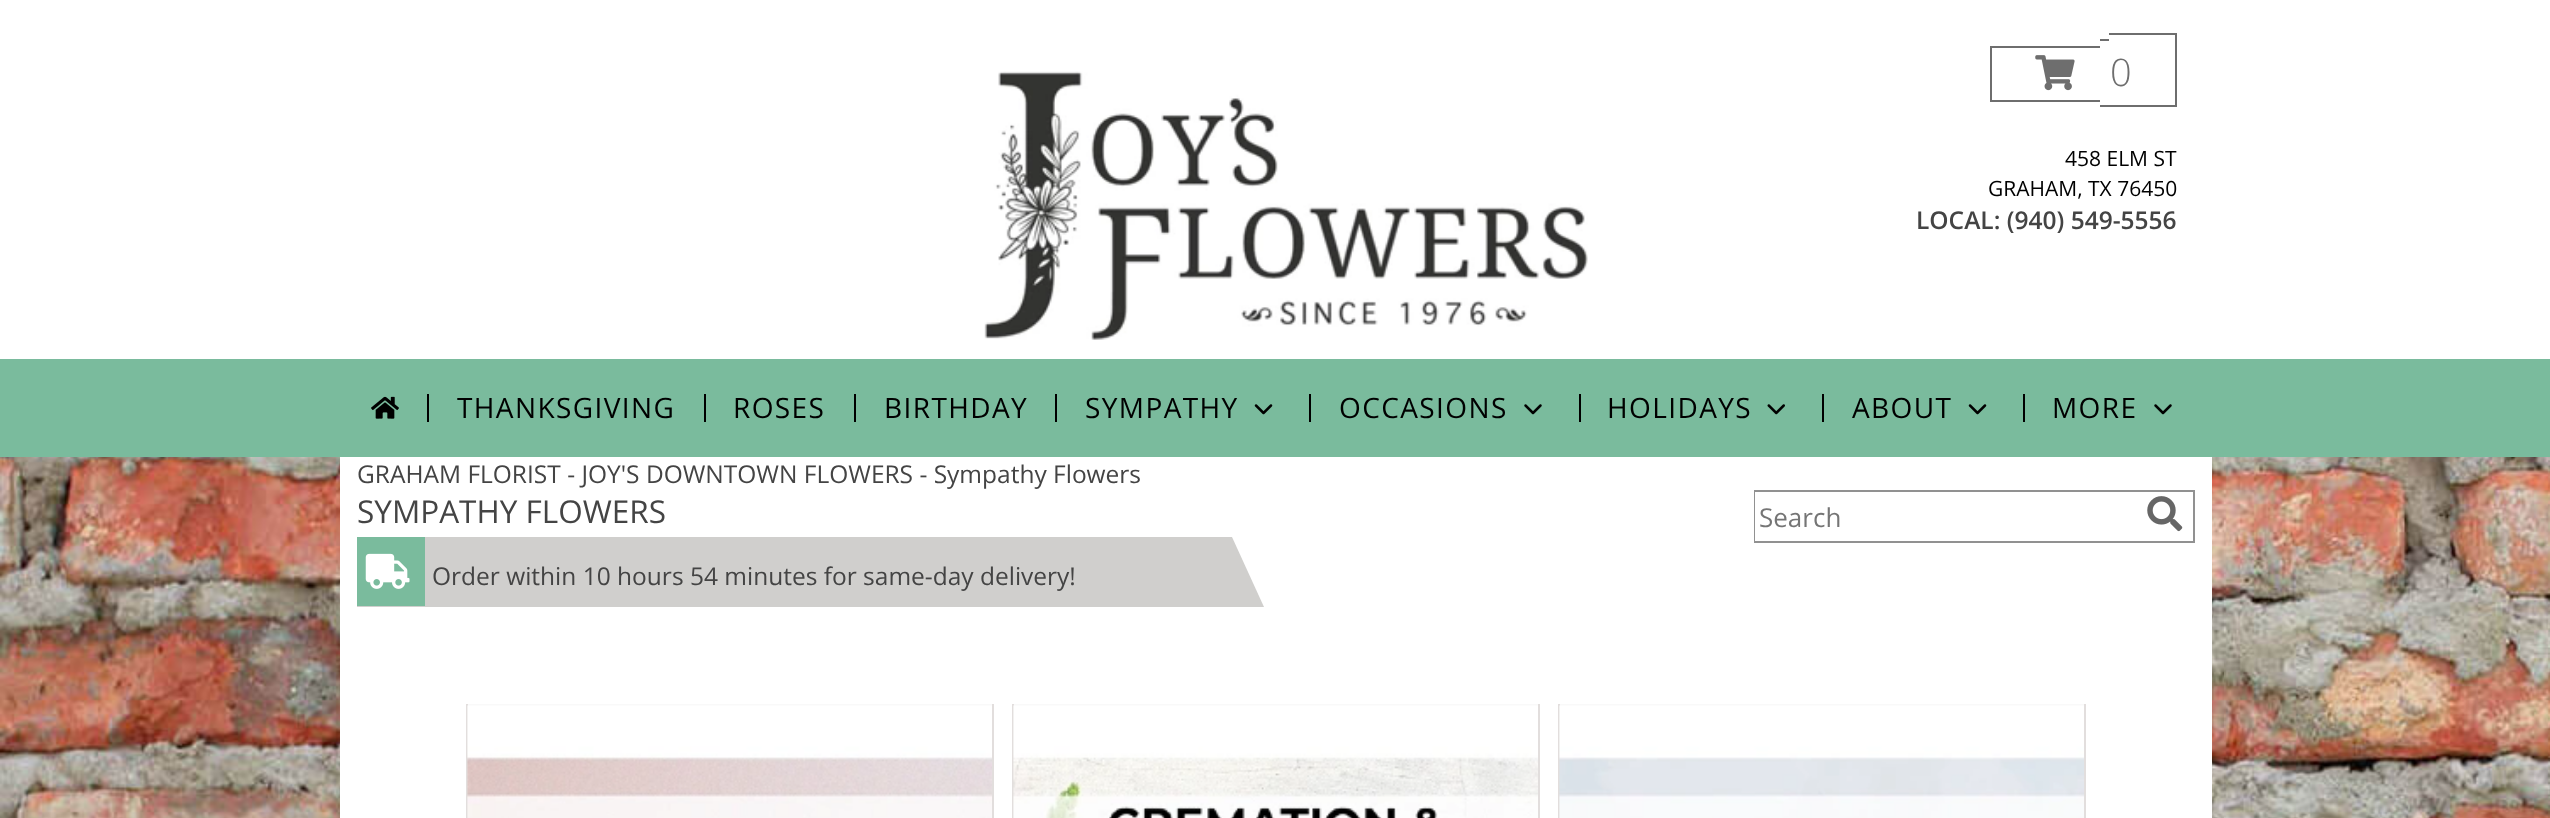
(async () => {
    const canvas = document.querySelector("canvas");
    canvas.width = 2550;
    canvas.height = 818;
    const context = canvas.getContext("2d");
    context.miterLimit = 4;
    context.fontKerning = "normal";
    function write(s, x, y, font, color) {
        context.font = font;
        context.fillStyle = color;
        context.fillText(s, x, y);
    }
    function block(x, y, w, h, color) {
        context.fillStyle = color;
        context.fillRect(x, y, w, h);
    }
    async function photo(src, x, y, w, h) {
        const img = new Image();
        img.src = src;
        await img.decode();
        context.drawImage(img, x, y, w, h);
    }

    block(0, 0, 2550, 818, "rgb(255, 255, 255)");
    await photo("media/1.png", 0, 457, 2550, 361);
    block(340, 457, 1872, 361, "rgb(255, 255, 255)");
    await photo("media/2.png", 984, 71, 604, 269);
    block(1990, 46, 110, 2, "rgb(110, 110, 110)");
    block(1990, 100, 110, 2, "rgb(110, 110, 110)");
    block(1990, 46, 2, 56, "rgb(110, 110, 110)");
    block(2100, 39, 9, 2, "rgb(110, 110, 110)");
    block(2100, 105, 9, 2, "rgb(110, 110, 110)");
    block(2109, 33, 68, 2, "rgb(110, 110, 110)");
    block(2175, 33, 2, 74, "rgb(110, 110, 110)");
    block(2109, 105, 68, 2, "rgb(110, 110, 110)");
    await photo("media/3.png", 2035, 55, 40, 36);
    write("0", 2110, 86, "300 38px Open Sans", "rgb(110, 110, 110)");
    write("458 ELM ST", 2065, 166, "21px Open Sans", "rgb(0, 0, 0)");
    write("GRAHAM, TX 76450", 1988, 196, "21px Open Sans", "rgb(0, 0, 0)");
    write("LOCAL: (940) 549-5556", 1916, 229, "600 24.5px Open Sans", "rgb(68, 68, 68)");
    block(0, 359, 2550, 98, "rgb(122, 187, 157)");
    await photo("media/4.png", 371, 396, 28, 23);
    block(427, 394, 2, 28, "rgb(0, 0, 0)");
    context.letterSpacing = "1.4px";
    write("THANKSGIVING", 457, 418, "28px Open Sans", "rgb(0, 0, 0)");
    block(704, 394, 2, 28, "rgb(0, 0, 0)");
    write("ROSES", 733, 418, "28px Open Sans", "rgb(0, 0, 0)");
    block(854, 394, 2, 28, "rgb(0, 0, 0)");
    write("BIRTHDAY", 884, 418, "28px Open Sans", "rgb(0, 0, 0)");
    block(1055, 394, 2, 28, "rgb(0, 0, 0)");
    write("SYMPATHY", 1085, 418, "28px Open Sans", "rgb(0, 0, 0)");
    await photo("media/5.png", 1254, 404, 19, 11);
    block(1309, 394, 2, 28, "rgb(0, 0, 0)");
    write("OCCASIONS", 1339, 418, "28px Open Sans", "rgb(0, 0, 0)");
    await photo("media/6.png", 1524, 404, 18, 11);
    block(1579, 394, 2, 28, "rgb(0, 0, 0)");
    write("HOLIDAYS", 1607, 418, "28px Open Sans", "rgb(0, 0, 0)");
    await photo("media/7.png", 1767, 404, 18, 11);
    block(1822, 394, 2, 28, "rgb(0, 0, 0)");
    write("ABOUT", 1852, 418, "28px Open Sans", "rgb(0, 0, 0)");
    await photo("media/5.png", 1968, 404, 19, 11);
    block(2023, 394, 2, 28, "rgb(0, 0, 0)");
    write("MORE", 2052, 418, "28px Open Sans", "rgb(0, 0, 0)");
    await photo("media/6.png", 2154, 404, 18, 11);
    context.letterSpacing = "0px";
    write("GRAHAM FLORIST - JOY'S DOWNTOWN FLOWERS - Sympathy Flowers", 357, 483, "24.5px Open Sans", "rgb(68, 68, 68)");
    write("SYMPATHY FLOWERS", 357, 523, "31.5px Open Sans", "rgb(68, 68, 68)");
    context.strokeStyle = "rgb(145, 145, 145)";
    context.lineWidth = 2;
    context.strokeRect(1755, 491, 439, 51);
    block(1755, 492, 1, 49, "rgb(255, 255, 255)");
    write("Search", 1759, 527, "26px Open Sans", "rgb(117, 117, 117)");
    await photo("media/8.png", 2147, 496, 36, 36);
    context.fillStyle = "rgb(208, 207, 205)";
    context.beginPath();
    context.moveTo(1264, 607);
    context.lineTo(357, 607);
    context.lineTo(357, 537);
    context.lineTo(1232, 537);
    context.closePath();
    context.fill();
    block(357, 537, 68, 69, "rgb(122, 187, 157)");
    await photo("media/9.png", 365, 553, 45, 36);
    write("Order within 10 hours 54 minutes for same-day delivery!", 432, 585, "24.5px Open Sans", "rgb(68, 68, 68)");
    block(466, 704, 528, 2, "rgb(249, 249, 249)");
    block(992, 704, 2, 114, "rgb(226, 222, 221)");
    block(466, 704, 2, 114, "rgb(226, 222, 221)");
    await photo("media/10.png", 467, 705, 525, 113);
    block(1012, 704, 528, 2, "rgb(249, 249, 249)");
    block(1538, 704, 2, 114, "rgb(226, 222, 221)");
    block(1012, 704, 2, 114, "rgb(226, 222, 221)");
    await photo("media/11.png", 1013, 705, 525, 113);
    block(1558, 704, 528, 2, "rgb(249, 249, 249)");
    block(2084, 704, 2, 114, "rgb(226, 222, 221)");
    block(1558, 704, 2, 114, "rgb(226, 222, 221)");
    await photo("media/12.png", 1559, 705, 525, 113);
})();
